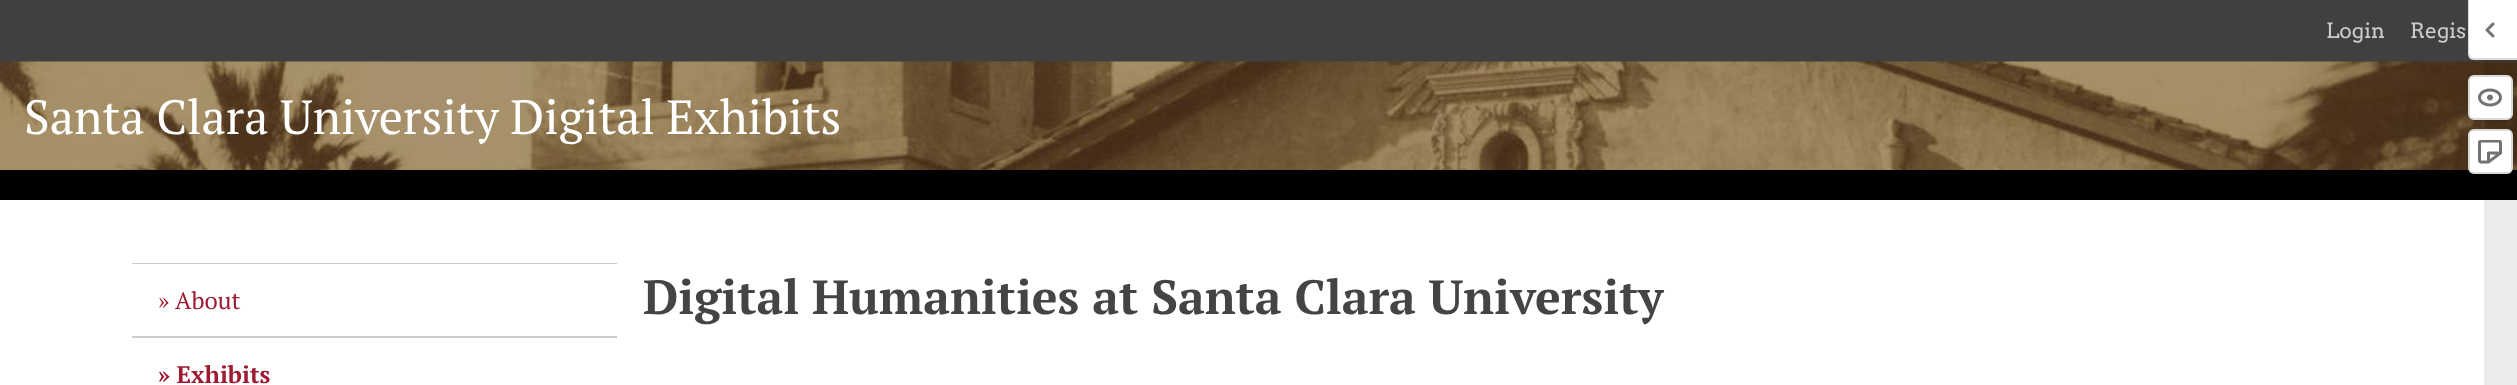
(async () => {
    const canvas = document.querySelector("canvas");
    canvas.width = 2517;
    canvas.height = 385;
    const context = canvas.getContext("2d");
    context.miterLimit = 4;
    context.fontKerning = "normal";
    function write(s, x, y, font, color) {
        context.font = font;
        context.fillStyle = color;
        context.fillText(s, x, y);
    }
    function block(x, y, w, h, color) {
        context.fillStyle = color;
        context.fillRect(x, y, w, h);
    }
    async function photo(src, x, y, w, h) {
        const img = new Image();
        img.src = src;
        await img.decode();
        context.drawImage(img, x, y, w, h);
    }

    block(0, 0, 2517, 385, "rgb(255, 255, 255)");
    block(0, 0, 2517, 62, "rgb(64, 64, 64)");
    write("Login", 2326, 38, "21px Arvo", "rgb(204, 204, 204)");
    write("Regis", 2410, 38, "21px Arvo", "rgb(204, 204, 204)");
    await photo("media/4.png", 0, 61, 2517, 109);
    block(0, 170, 2517, 30, "rgb(0, 0, 0)");
    block(2484, 60, 33, 325, "rgba(0, 0, 0, 0.08)");
    context.fillStyle = "rgb(255, 255, 255)";
    context.beginPath();
    context.roundRect(2469, 0, 48, 59, [0, 0, 0, 5]);
    context.fill();
    context.fillStyle = "rgb(219, 219, 219)";
    context.beginPath();
    context.moveTo(2468, 0);
    context.lineTo(2517, 0);
    context.lineTo(2517, 60);
    context.lineTo(2474, 60);
    context.bezierCurveTo(2470, 60, 2468, 57, 2468, 54);
    context.closePath();
    context.moveTo(2469, 0);
    context.lineTo(2517, 0);
    context.lineTo(2517, 58);
    context.lineTo(2474, 58);
    context.bezierCurveTo(2471, 58, 2469, 56, 2469, 54);
    context.closePath();
    context.fill("evenodd");
    await photo("media/1.png", 2485, 22, 10, 16);
    context.fillStyle = "rgba(0, 0, 0, 0.1)";
    context.filter = "blur(1px)";
    context.beginPath();
    context.roundRect(2468, 77, 45, 45, 6);
    context.fill();
    context.filter = "none";
    context.fillStyle = "rgb(255, 255, 255)";
    context.beginPath();
    context.roundRect(2469, 76, 43, 43, 5);
    context.fill();
    context.strokeStyle = "rgb(219, 219, 219)";
    context.lineWidth = 2;
    context.stroke();
    await photo("media/2.png", 2478, 88, 24, 19);
    context.fillStyle = "rgba(0, 0, 0, 0.1)";
    context.filter = "blur(1px)";
    context.beginPath();
    context.roundRect(2468, 131, 45, 45, 6);
    context.fill();
    context.filter = "none";
    context.fillStyle = "rgb(255, 255, 255)";
    context.beginPath();
    context.roundRect(2469, 130, 43, 43, 5);
    context.fill();
    context.stroke();
    await photo("media/3.png", 2478, 140, 24, 24);
    write("Santa Clara University Digital Exhibits", 24, 134, "48px PT Serif", "rgb(255, 255, 255)");
    block(132, 263, 485, 1, "rgb(204, 204, 204)");
    block(132, 336, 485, 2, "rgb(204, 204, 204)");
    write("»", 158, 309, "24px PT Serif", "rgb(158, 27, 50)");
    write("About", 175, 309, "24px PT Serif", "rgb(158, 27, 50)");
    write("» Exhibits", 158, 383, "bold 24px PT Serif", "rgb(158, 27, 50)");
    write("Digital Humanities at Santa Clara University", 643, 314, "bold 48px PT Serif", "rgb(68, 68, 68)");
})();
